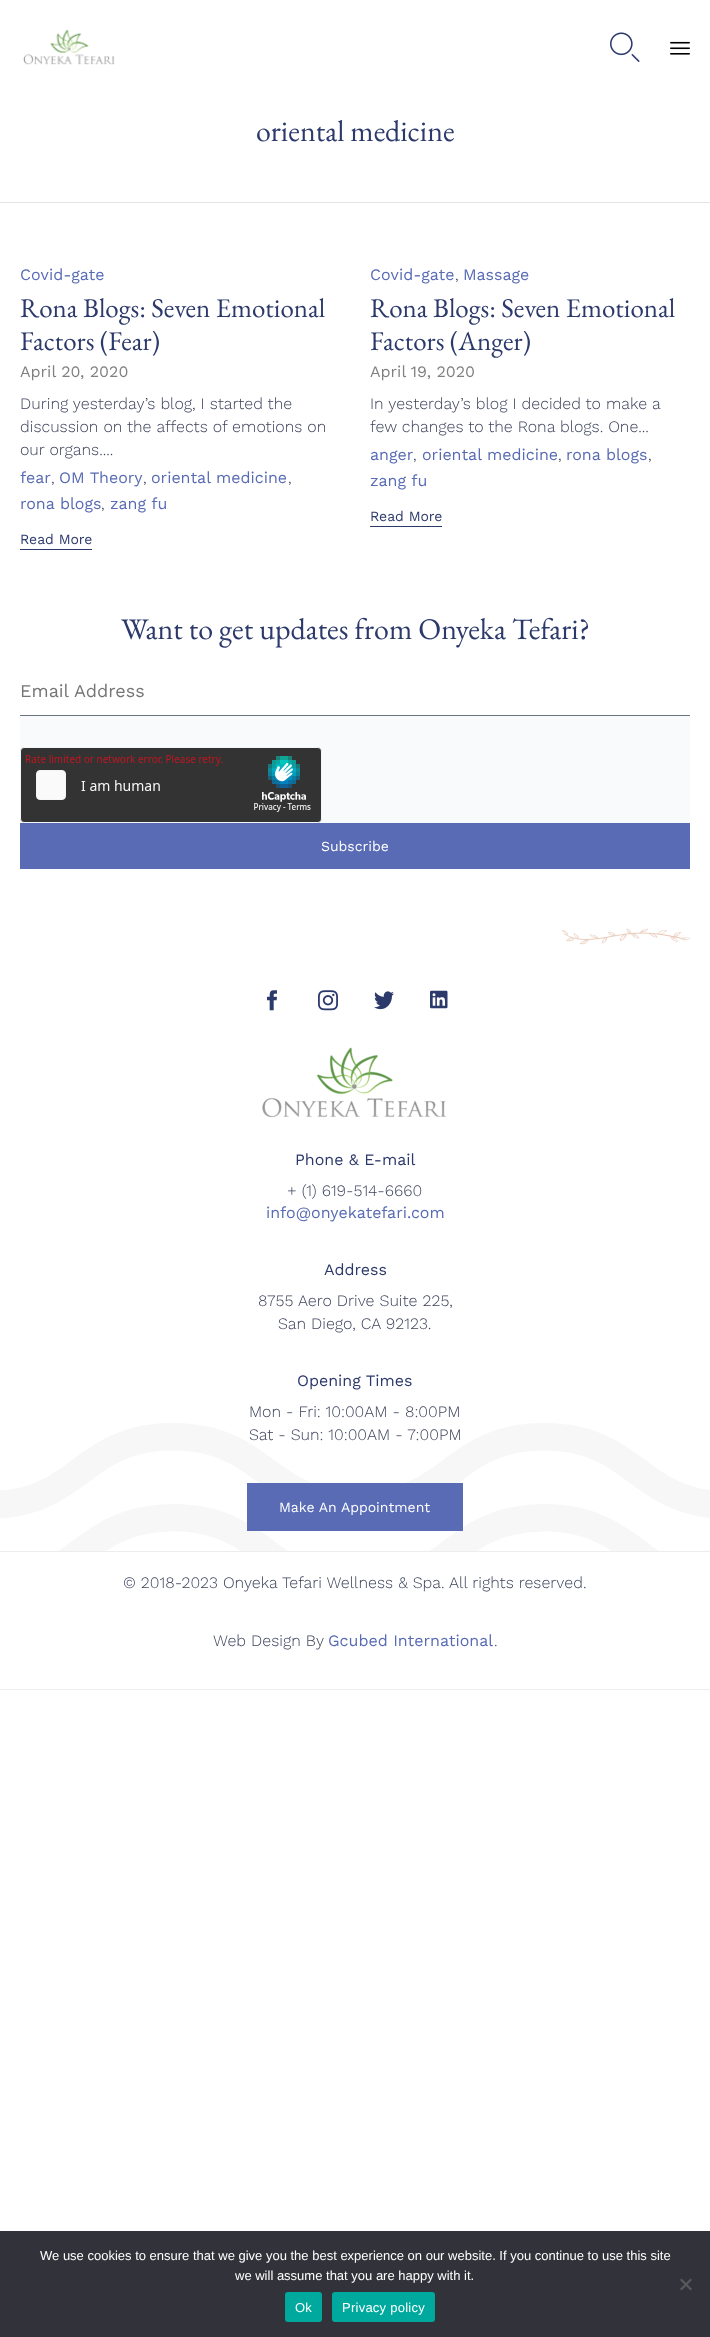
(async () => {
    const canvas = document.querySelector("canvas");
    canvas.width = 710;
    canvas.height = 2337;
    const context = canvas.getContext("2d");
    context.miterLimit = 4;
    context.fontKerning = "normal";
    function write(s, x, y, font, color) {
        context.font = font;
        context.fillStyle = color;
        context.fillText(s, x, y);
    }
    function block(x, y, w, h, color) {
        context.fillStyle = color;
        context.fillRect(x, y, w, h);
    }
    function card(x, y, w, h, r, color) {
        context.fillStyle = color;
        context.beginPath();
        context.roundRect(x, y, w, h, r);
        context.fill();
    }
    async function photo(src, x, y, w, h) {
        const img = new Image();
        img.src = src;
        await img.decode();
        context.drawImage(img, x, y, w, h);
    }

    block(0, 0, 710, 2337, "rgb(255, 255, 255)");
    await photo("media/1.png", 23, 29, 92, 36);
    await photo("media/2.png", 610, 32, 30, 30);
    await photo("media/3.png", 670, 41, 20, 14);
    block(0, 202, 710, 1, "rgb(228, 228, 228)");
    write("oriental medicine", 256, 141, "30px EB Garamond", "rgb(44, 57, 107)");
    write("Covid-gate", 20, 280, "16px Work Sans", "rgb(88, 107, 180)");
    write("Rona Blogs: Seven Emotional", 20, 317, "27px EB Garamond", "rgb(44, 57, 107)");
    write("Factors (Fear)", 20, 350, "27px EB Garamond", "rgb(44, 57, 107)");
    write("April 20, 2020", 20, 377, "16px Work Sans", "rgb(128, 128, 128)");
    write("During yesterday’s blog, I started the", 20, 409, "300 16px Work Sans", "rgb(61, 67, 92)");
    write("discussion on the affects of emotions on", 20, 432, "300 16px Work Sans", "rgb(61, 67, 92)");
    write("our organs....", 20, 455, "300 16px Work Sans", "rgb(61, 67, 92)");
    write("fear", 20, 483, "16px Work Sans", "rgb(88, 107, 180)");
    write(",", 51, 483, "300 16px Work Sans", "rgb(61, 67, 92)");
    write("OM Theory", 59, 483, "16px Work Sans", "rgb(88, 107, 180)");
    write(",", 143, 483, "300 16px Work Sans", "rgb(61, 67, 92)");
    write("oriental medicine", 151, 483, "16px Work Sans", "rgb(88, 107, 180)");
    write(",", 288, 483, "300 16px Work Sans", "rgb(61, 67, 92)");
    write("rona blogs", 20, 509, "16px Work Sans", "rgb(88, 107, 180)");
    write(",", 101, 509, "300 16px Work Sans", "rgb(61, 67, 92)");
    write("zang fu", 110, 509, "16px Work Sans", "rgb(88, 107, 180)");
    block(20, 549, 72, 1, "rgb(44, 57, 107)");
    write("Read More", 20, 544, "14px Work Sans", "rgb(44, 57, 107)");
    write("Covid-gate", 370, 280, "16px Work Sans", "rgb(88, 107, 180)");
    write(",", 455, 280, "300 16px Work Sans", "rgb(61, 67, 92)");
    write("Massage", 463, 280, "16px Work Sans", "rgb(88, 107, 180)");
    write("Rona Blogs: Seven Emotional", 370, 317, "27px EB Garamond", "rgb(44, 57, 107)");
    write("Factors (Anger)", 370, 350, "27px EB Garamond", "rgb(44, 57, 107)");
    write("April 19, 2020", 370, 377, "16px Work Sans", "rgb(128, 128, 128)");
    write("In yesterday’s blog I decided to make a", 370, 409, "300 16px Work Sans", "rgb(61, 67, 92)");
    write("few changes to the Rona blogs. One...", 370, 432, "300 16px Work Sans", "rgb(61, 67, 92)");
    write("anger", 370, 460, "16px Work Sans", "rgb(88, 107, 180)");
    write(",", 413, 460, "300 16px Work Sans", "rgb(61, 67, 92)");
    write("oriental medicine", 422, 460, "16px Work Sans", "rgb(88, 107, 180)");
    write(",", 558, 460, "300 16px Work Sans", "rgb(61, 67, 92)");
    write("rona blogs", 566, 460, "16px Work Sans", "rgb(88, 107, 180)");
    write(",", 648, 460, "300 16px Work Sans", "rgb(61, 67, 92)");
    write("zang fu", 370, 486, "16px Work Sans", "rgb(88, 107, 180)");
    block(370, 526, 72, 1, "rgb(44, 57, 107)");
    write("Read More", 370, 521, "14px Work Sans", "rgb(44, 57, 107)");
    await photo("media/4.png", 0, 1423, 710, 128);
    write("Want to get updates from Onyeka Tefari?", 121, 639, "30px EB Garamond", "rgb(44, 57, 107)");
    block(20, 716, 670, 107, "rgb(249, 250, 251)");
    block(20, 715, 670, 1, "rgb(107, 114, 128)");
    write("Email Address", 20, 697, "18px Work Sans", "rgb(117, 117, 117)");
    await photo("media/5.png", 20, 747, 302, 76);
    block(20, 823, 670, 46, "rgb(88, 107, 180)");
    write("Subscribe", 321, 851, "14px Work Sans", "rgb(255, 255, 255)");
    await photo("media/6.png", 562, 928, 129, 17);
    await photo("media/7.png", 267, 990, 10, 21);
    await photo("media/8.png", 318, 990, 20, 21);
    await photo("media/9.png", 374, 991, 20, 19);
    await photo("media/10.png", 430, 990, 18, 19);
    await photo("media/11.png", 262, 1047, 185, 71);
    write("Phone & E-mail", 295, 1165, "16px Work Sans", "rgb(44, 57, 107)");
    write("+ (1) 619-514-6660", 287, 1196, "300 16px Work Sans", "rgb(61, 67, 92)");
    write("info@onyekatefari.com", 266, 1218, "16px Work Sans", "rgb(88, 107, 180)");
    write("Address", 324, 1275, "16px Work Sans", "rgb(44, 57, 107)");
    write("8755 Aero Drive Suite 225,", 258, 1306, "300 16px Work Sans", "rgb(61, 67, 92)");
    write("San Diego, CA 92123.", 278, 1329, "300 16px Work Sans", "rgb(61, 67, 92)");
    write("Opening Times", 297, 1386, "16px Work Sans", "rgb(44, 57, 107)");
    write("Mon - Fri: 10:00AM - 8:00PM", 249, 1417, "300 16px Work Sans", "rgb(61, 67, 92)");
    write("Sat - Sun: 10:00AM - 7:00PM", 249, 1440, "300 16px Work Sans", "rgb(61, 67, 92)");
    block(247, 1483, 216, 48, "rgb(88, 107, 180)");
    write("Make An Appointment", 279, 1512, "14px Work Sans", "rgb(255, 255, 255)");
    block(0, 1551, 710, 1, "rgb(237, 237, 237)");
    block(0, 1689, 710, 1, "rgb(237, 237, 237)");
    write("© 2018-2023 Onyeka Tefari Wellness & Spa. All rights reserved.", 123, 1588, "300 16px Work Sans", "rgb(61, 67, 92)");
    write("Web Design By", 213, 1646, "300 16px Work Sans", "rgb(61, 67, 92)");
    write("Gcubed International", 328, 1646, "16px Work Sans", "rgb(88, 107, 180)");
    write(".", 494, 1646, "300 16px Work Sans", "rgb(61, 67, 92)");
    block(0, 2231, 710, 106, "rgb(50, 50, 58)");
    write("We use cookies to ensure that we give you the best experience on our website. If you continue to use this site", 40, 2260, "13px Liberation Sans", "rgb(255, 255, 255)");
    write("we will assume that you are happy with it.", 235, 2280, "13px Liberation Sans", "rgb(255, 255, 255)");
    context.fillStyle = "rgb(89, 89, 93)";
    context.beginPath();
    context.moveTo(690.5, 2278.5);
    context.lineTo(692, 2280);
    context.lineTo(681.5, 2290.5);
    context.lineTo(680, 2289);
    context.closePath();
    context.fill();
    context.beginPath();
    context.moveTo(680, 2280);
    context.lineTo(681.5, 2278.5);
    context.lineTo(692, 2289);
    context.lineTo(690.5, 2290.5);
    context.closePath();
    context.fill();
    card(285, 2292, 37, 30, 3, "rgb(0, 169, 157)");
    context.letterSpacing = "0.25px";
    write("Ok", 295, 2312, "13px Liberation Sans", "rgb(255, 255, 255)");
    card(332, 2292, 103, 30, 3, "rgb(0, 169, 157)");
    write("Privacy policy", 342, 2312, "13px Liberation Sans", "rgb(255, 255, 255)");
})();
